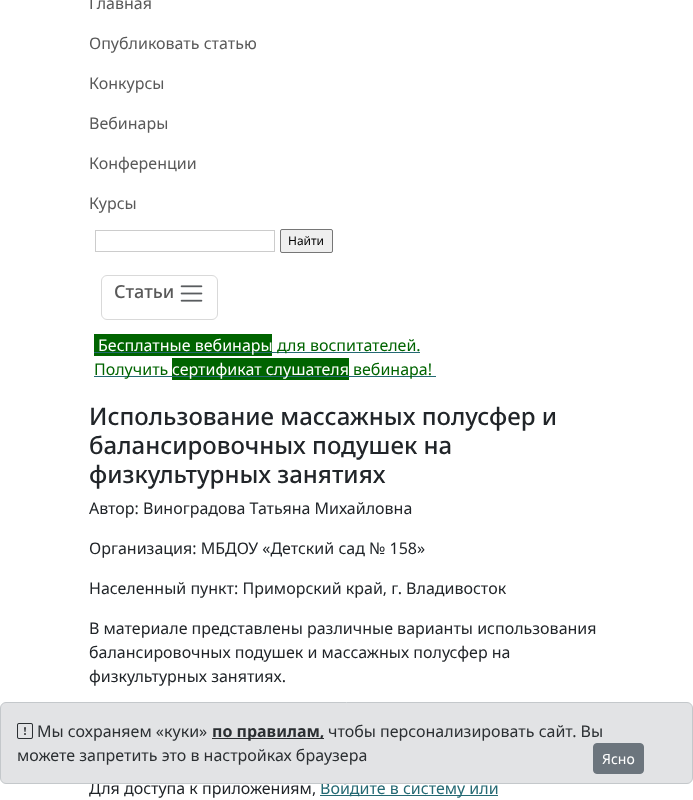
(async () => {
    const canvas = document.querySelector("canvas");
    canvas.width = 693;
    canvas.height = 800;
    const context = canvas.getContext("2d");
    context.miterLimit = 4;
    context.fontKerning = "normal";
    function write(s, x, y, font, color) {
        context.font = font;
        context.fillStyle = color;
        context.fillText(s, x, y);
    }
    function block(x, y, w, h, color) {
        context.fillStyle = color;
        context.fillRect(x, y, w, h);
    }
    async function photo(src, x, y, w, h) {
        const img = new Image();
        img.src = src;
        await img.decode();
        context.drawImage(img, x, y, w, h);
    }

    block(0, 0, 693, 800, "rgb(255, 255, 255)");
    write("Главная", 89, 9, "16px Noto Sans", "rgb(89, 89, 89)");
    write("Опубликовать статью", 89, 49, "16px Noto Sans", "rgb(89, 89, 89)");
    write("Конкурсы", 89, 89, "16px Noto Sans", "rgb(89, 89, 89)");
    write("Вебинары", 89, 129, "16px Noto Sans", "rgb(89, 89, 89)");
    write("Конференции", 89, 169, "16px Noto Sans", "rgb(89, 89, 89)");
    write("Курсы", 89, 209, "16px Noto Sans", "rgb(89, 89, 89)");
    context.strokeStyle = "rgb(204, 204, 204)";
    context.strokeRect(95.5, 230.5, 179, 21);
    context.fillStyle = "rgb(239, 239, 239)";
    context.beginPath();
    context.roundRect(280.5, 229.5, 52, 23, 1.5);
    context.fill();
    context.strokeStyle = "rgb(118, 118, 118)";
    context.stroke();
    write("Найти", 288, 245, "12px Noto Sans", "rgb(0, 0, 0)");
    context.beginPath();
    context.roundRect(101.5, 275.5, 116, 44, 5.5);
    context.strokeStyle = "rgb(217, 217, 217)";
    context.stroke();
    write("Статьи", 114, 298, "500 18px Noto Sans", "rgb(89, 89, 89)");
    await photo("media/1.png", 180, 285, 23, 17);
    block(94, 334, 178, 22, "rgb(0, 100, 0)");
    block(94, 352, 326, 1, "rgb(36, 105, 115)");
    write("Бесплатные вебинары", 98, 351, "16px Noto Sans", "rgb(255, 255, 255)");
    write("для воспитателей.", 277, 351, "16px Noto Sans", "rgb(0, 100, 0)");
    block(94, 376, 78, 1, "rgb(36, 105, 115)");
    write("Получить", 94, 375, "16px Noto Sans", "rgb(0, 100, 0)");
    block(172, 358, 177, 22, "rgb(0, 100, 0)");
    block(172, 376, 264, 1, "rgb(36, 105, 115)");
    write("сертификат слушателя", 172, 375, "16px Noto Sans", "rgb(255, 255, 255)");
    write("вебинара!", 353, 375, "16px Noto Sans", "rgb(0, 100, 0)");
    write("Использование массажных полусфер и", 89, 425, "500 24px Noto Sans", "rgb(33, 37, 41)");
    write("балансировочных подушек на", 89, 454, "500 24px Noto Sans", "rgb(33, 37, 41)");
    write("физкультурных занятиях", 89, 483, "500 24px Noto Sans", "rgb(33, 37, 41)");
    write("Автор: Виноградова Татьяна Михайловна", 89, 514, "16px Noto Sans", "rgb(33, 37, 41)");
    write("Организация: МБДОУ «Детский сад № 158»", 89, 554, "16px Noto Sans", "rgb(33, 37, 41)");
    write("Населенный пункт: Приморский край, г. Владивосток", 89, 594, "16px Noto Sans", "rgb(33, 37, 41)");
    write("В материале представлены различные варианты использования", 89, 634, "16px Noto Sans", "rgb(33, 37, 41)");
    write("балансировочных подушек и массажных полусфер на", 89, 658, "16px Noto Sans", "rgb(33, 37, 41)");
    write("физкультурных занятиях.", 89, 682, "16px Noto Sans", "rgb(33, 37, 41)");
    write("Для доступа к приложениям,", 89, 794, "16px Noto Sans", "rgb(33, 37, 41)");
    block(320, 795, 178, 1, "rgb(36, 105, 115)");
    write("Войдите в систему или", 320, 794, "16px Noto Sans", "rgb(36, 105, 115)");
    context.fillStyle = "rgb(226, 227, 229)";
    context.beginPath();
    context.roundRect(0.5, 702.5, 692, 81, 5.5);
    context.fill();
    context.strokeStyle = "rgb(196, 200, 203)";
    context.stroke();
    await photo("media/2.png", 17, 723, 16, 16);
    write("Мы сохраняем «куки»", 37, 737, "16px Noto Sans", "rgb(43, 47, 50)");
    block(212, 738, 112, 1, "rgb(43, 47, 50)");
    write("по правилам,", 212, 737, "bold 16px Noto Sans", "rgb(43, 47, 50)");
    write("чтобы персонализировать сайт. Вы", 328, 737, "16px Noto Sans", "rgb(43, 47, 50)");
    write("можете запретить это в настройках браузера", 17, 761, "16px Noto Sans", "rgb(43, 47, 50)");
    context.fillStyle = "rgb(108, 117, 125)";
    context.beginPath();
    context.roundRect(593.5, 743.5, 50, 30, 3.5);
    context.fill();
    context.strokeStyle = "rgb(108, 117, 125)";
    context.stroke();
    write("Ясно", 602, 764, "14px Noto Sans", "rgb(255, 255, 255)");
})();
